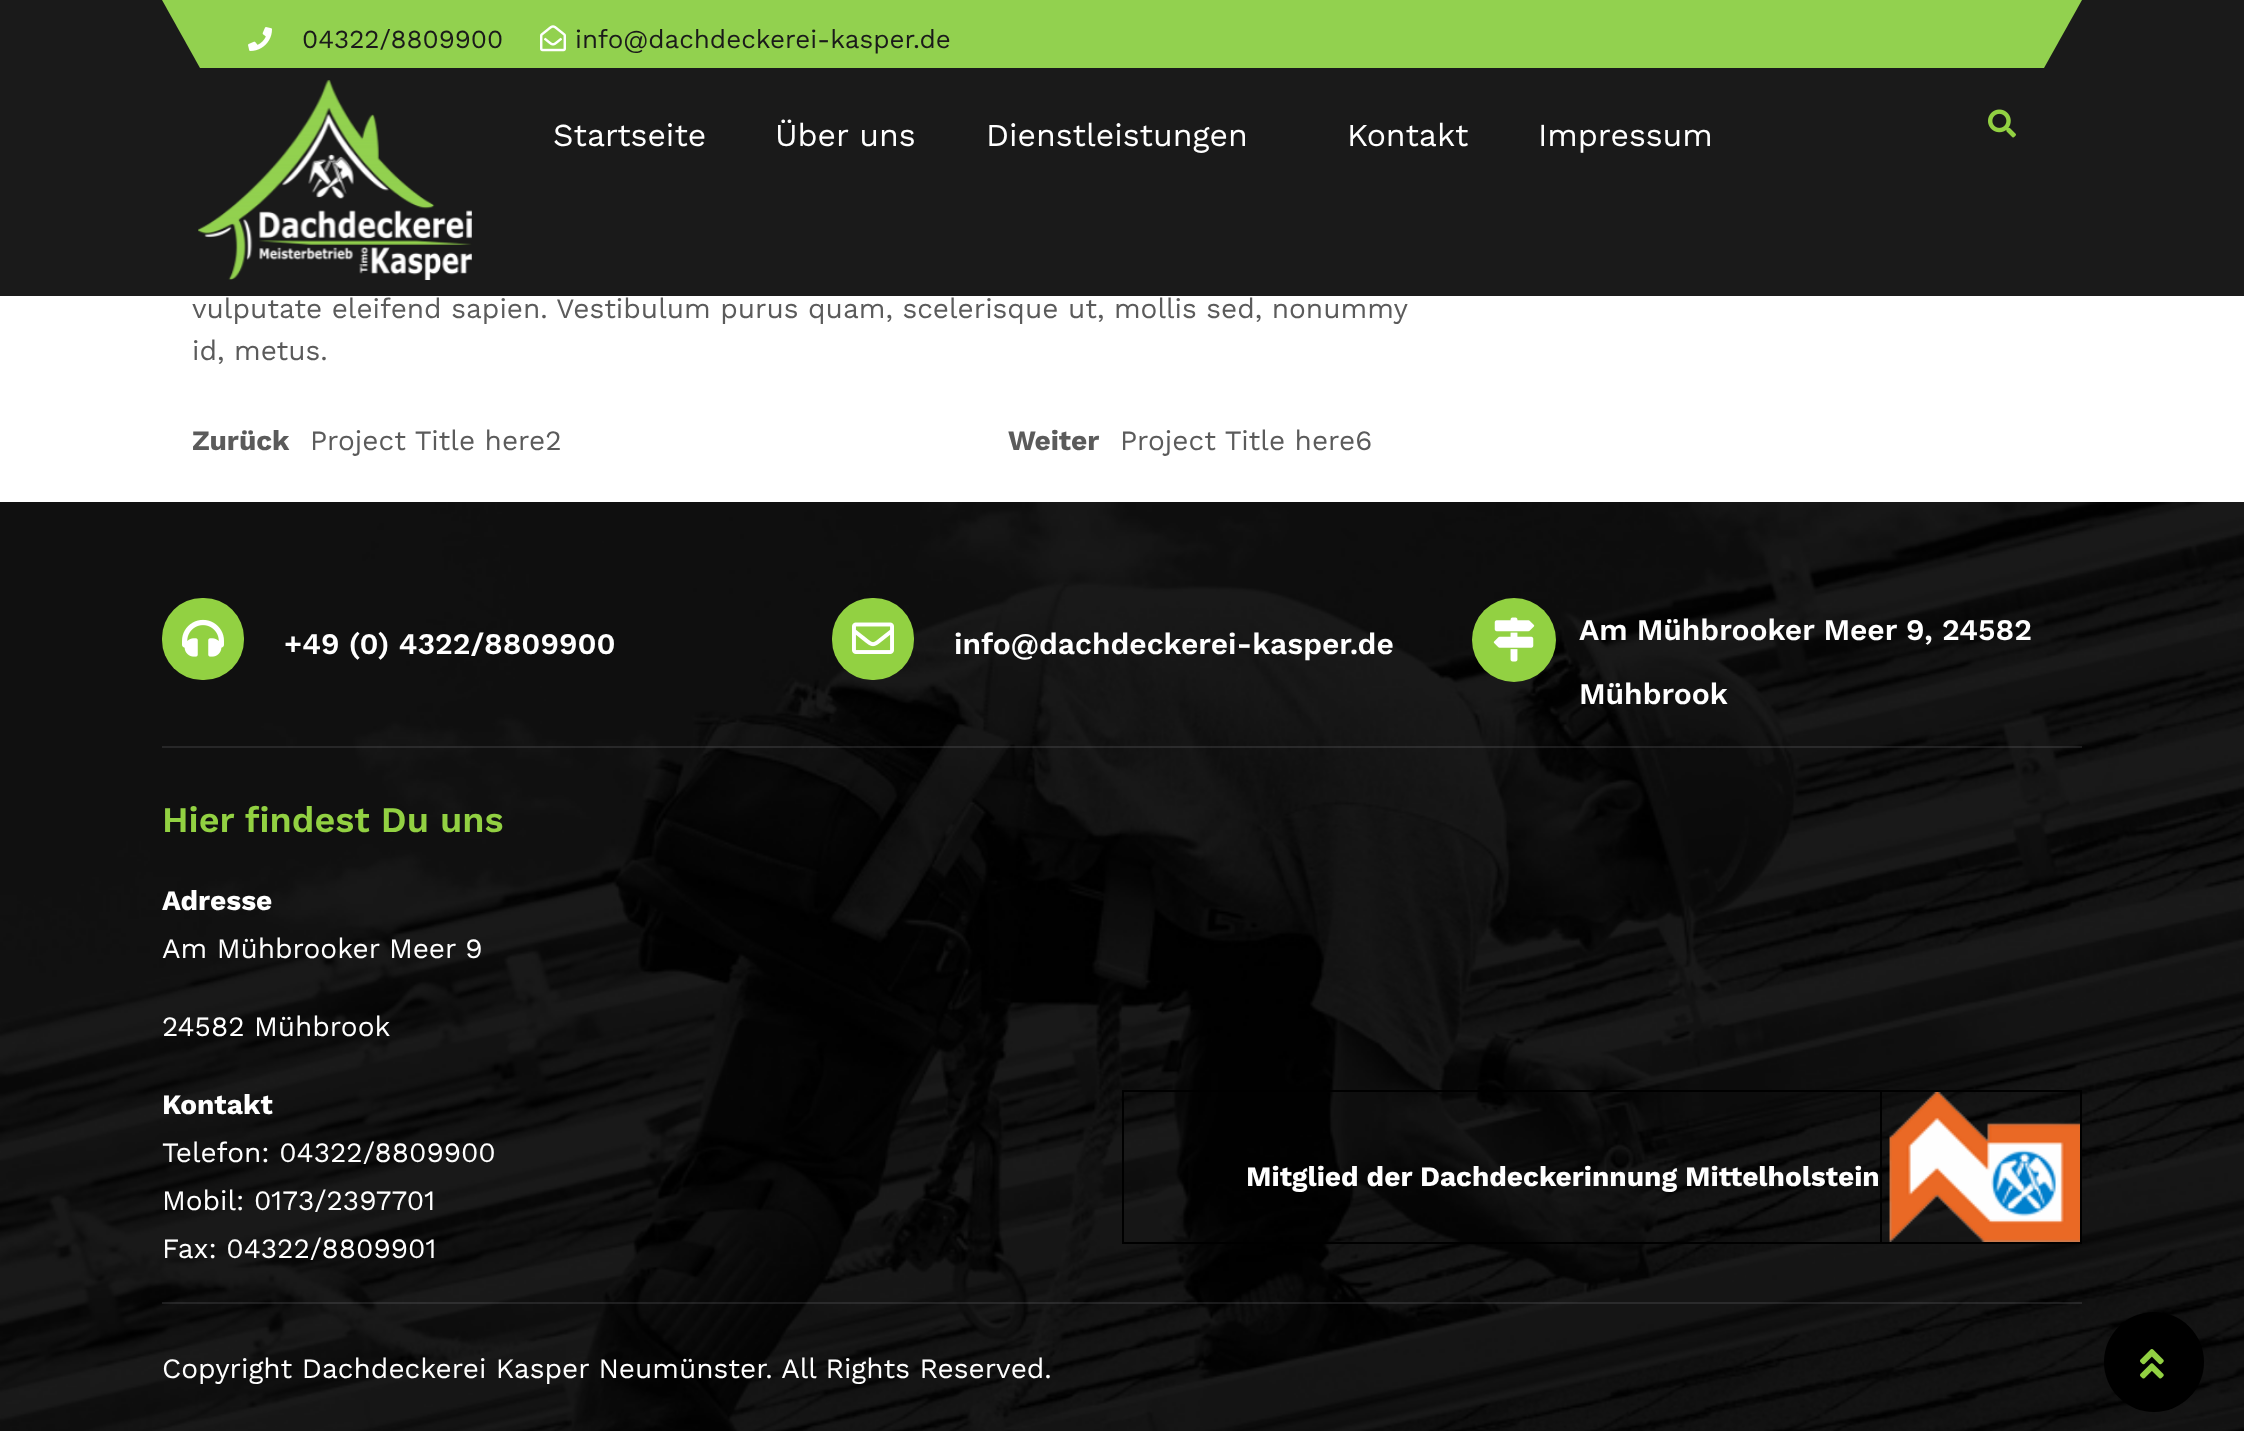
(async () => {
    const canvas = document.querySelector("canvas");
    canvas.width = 2244;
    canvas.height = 1431;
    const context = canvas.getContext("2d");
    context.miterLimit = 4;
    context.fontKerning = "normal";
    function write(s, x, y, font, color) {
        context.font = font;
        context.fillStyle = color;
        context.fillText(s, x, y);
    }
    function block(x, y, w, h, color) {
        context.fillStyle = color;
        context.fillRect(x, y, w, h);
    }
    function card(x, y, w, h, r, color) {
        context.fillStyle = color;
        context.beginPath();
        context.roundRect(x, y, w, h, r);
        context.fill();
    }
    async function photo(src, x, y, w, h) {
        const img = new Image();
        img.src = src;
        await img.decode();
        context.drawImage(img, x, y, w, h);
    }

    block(0, 0, 2244, 1431, "rgb(255, 255, 255)");
    block(0, 0, 2244, 296, "rgb(26, 26, 26)");
    context.fillStyle = "rgb(146, 209, 79)";
    context.beginPath();
    context.moveTo(162, 0);
    context.lineTo(200, 68);
    context.lineTo(2044, 68);
    context.lineTo(2082, 0);
    context.closePath();
    context.fill();
    await photo("media/1.png", 248, 27, 24, 24);
    write("04322/8809900", 302, 48, "26px Work Sans", "rgb(26, 26, 26)");
    await photo("media/2.png", 540, 25, 26, 27);
    write("info@dachdeckerei-kasper.de", 575, 48, "26px Work Sans", "rgb(26, 26, 26)");
    await photo("media/3.png", 198, 80, 274, 200);
    write("Startseite", 553, 146, "32px Work Sans", "rgb(255, 255, 255)");
    write("Über uns", 775, 146, "32px Work Sans", "rgb(255, 255, 255)");
    write("Dienstleistungen", 986, 146, "32px Work Sans", "rgb(255, 255, 255)");
    write("Kontakt", 1347, 146, "32px Work Sans", "rgb(255, 255, 255)");
    write("Impressum", 1538, 146, "32px Work Sans", "rgb(255, 255, 255)");
    await photo("media/4.png", 1988, 109, 28, 29);
    write("vulputate eleifend sapien. Vestibulum purus quam, scelerisque ut, mollis sed, nonummy", 192, 318, "28px Work Sans", "rgb(91, 91, 91)");
    write("id, metus.", 192, 360, "28px Work Sans", "rgb(91, 91, 91)");
    write("Zurück", 192, 450, "bold 28px Work Sans", "rgb(91, 91, 91)");
    write("Project Title here2", 310, 450, "28px Work Sans", "rgb(91, 91, 91)");
    write("Weiter", 1008, 450, "bold 28px Work Sans", "rgb(91, 91, 91)");
    write("Project Title here6", 1120, 450, "28px Work Sans", "rgb(91, 91, 91)");
    await photo("media/5.png", 0, 502, 2244, 929);
    block(162, 746, 1920, 2, "rgba(247, 247, 255, 0.1)");
    card(162, 598, 82, 82, 40, "rgb(146, 209, 66)");
    await photo("media/6.png", 182, 619, 42, 38);
    write("+49 (0) 4322/8809900", 284, 654, "600 30px Work Sans", "rgb(255, 255, 255)");
    card(832, 598, 82, 82, 40, "rgb(146, 209, 66)");
    await photo("media/7.png", 852, 622, 42, 32);
    write("info@dachdeckerei-kasper.de", 954, 654, "600 30px Work Sans", "rgb(255, 255, 255)");
    context.fillStyle = "rgb(146, 209, 66)";
    context.beginPath();
    context.arc(1514, 640, 42, 0, Math.PI * 2);
    context.fill();
    await photo("media/8.png", 1493, 617, 42, 45);
    write("Am Mühbrooker Meer 9, 24582", 1579, 640, "600 30px Work Sans", "rgb(255, 255, 255)");
    write("Mühbrook", 1579, 704, "600 30px Work Sans", "rgb(255, 255, 255)");
    write("Hier findest Du uns", 162, 832, "600 36px Work Sans", "rgb(146, 209, 66)");
    write("Adresse", 162, 910, "bold 28px Work Sans", "rgb(255, 255, 255)");
    write("Am Mühbrooker Meer 9", 162, 958, "28px Work Sans", "rgb(255, 255, 255)");
    write("24582 Mühbrook", 162, 1036, "28px Work Sans", "rgb(255, 255, 255)");
    write("Kontakt", 162, 1114, "bold 28px Work Sans", "rgb(255, 255, 255)");
    write("Telefon: 04322/8809900", 162, 1162, "28px Work Sans", "rgb(255, 255, 255)");
    write("Mobil: 0173/2397701", 162, 1210, "28px Work Sans", "rgb(255, 255, 255)");
    write("Fax: 04322/8809901", 162, 1258, "28px Work Sans", "rgb(255, 255, 255)");
    block(1122, 1090, 960, 2, "rgb(0, 0, 0)");
    block(1122, 1090, 2, 154, "rgb(0, 0, 0)");
    block(2080, 1090, 2, 154, "rgb(0, 0, 0)");
    block(1880, 1242, 202, 2, "rgb(0, 0, 0)");
    block(1880, 1090, 2, 154, "rgb(0, 0, 0)");
    block(1122, 1242, 760, 2, "rgb(0, 0, 0)");
    write("Mitglied der Dachdeckerinnung Mittelholstein", 1246, 1186, "bold 28px Work Sans", "rgb(255, 255, 255)");
    await photo("media/9.png", 1889, 1092, 191, 150);
    block(162, 1302, 1920, 2, "rgba(247, 247, 255, 0.1)");
    write("Copyright Dachdeckerei Kasper Neumünster. All Rights Reserved.", 162, 1378, "28px Work Sans", "rgb(255, 255, 255)");
    context.fillStyle = "rgb(0, 0, 0)";
    context.beginPath();
    context.arc(2154, 1362, 50, 0, Math.PI * 2);
    context.fill();
    await photo("media/10.png", 2140, 1349, 24, 30);
})();
